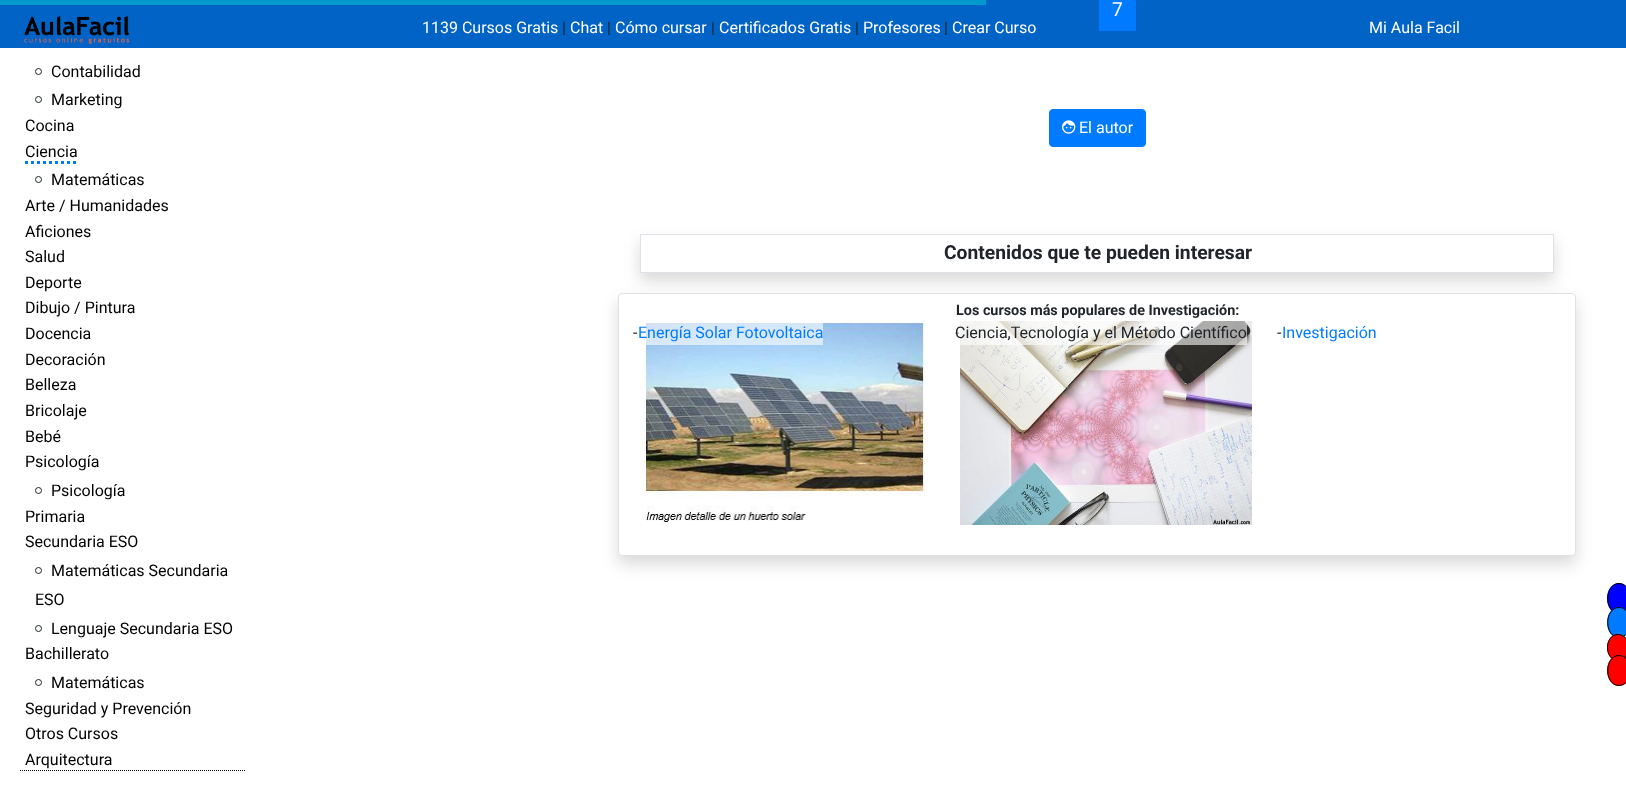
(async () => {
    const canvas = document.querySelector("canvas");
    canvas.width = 1626;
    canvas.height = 804;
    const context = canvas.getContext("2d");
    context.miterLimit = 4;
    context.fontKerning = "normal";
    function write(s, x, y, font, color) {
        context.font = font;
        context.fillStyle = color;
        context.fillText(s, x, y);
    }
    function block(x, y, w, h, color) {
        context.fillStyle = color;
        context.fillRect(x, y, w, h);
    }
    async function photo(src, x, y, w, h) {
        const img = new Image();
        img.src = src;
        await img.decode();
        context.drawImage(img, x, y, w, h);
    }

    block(0, 0, 1626, 804, "rgb(255, 255, 255)");
    block(0, 0, 1626, 48, "rgb(0, 99, 197)");
    block(0, 0, 986, 5, "rgb(0, 154, 207)");
    context.beginPath();
    context.moveTo(20, 770.5);
    context.lineTo(246, 770.5);
    context.strokeStyle = "rgb(0, 0, 0)";
    context.setLineDash([1, 1]);
    context.stroke();
    context.beginPath();
    context.arc(38.5, 71.5, 3, 0, Math.PI * 2);
    context.strokeStyle = "rgb(33, 37, 41)";
    context.setLineDash([]);
    context.stroke();
    write("Contabilidad", 51, 77, "16px Roboto", "rgb(0, 0, 0)");
    context.beginPath();
    context.arc(38.5, 99.5, 3, 0, Math.PI * 2);
    context.stroke();
    write("Marketing", 51, 105, "16px Roboto", "rgb(0, 0, 0)");
    write("Cocina", 25, 131, "16px Roboto", "rgb(0, 0, 0)");
    write("Ciencia", 25, 157, "16px Roboto", "rgb(0, 0, 0)");
    context.beginPath();
    context.moveTo(25, 162.5);
    context.lineTo(78, 162.5);
    context.strokeStyle = "rgb(0, 123, 255)";
    context.lineWidth = 3;
    context.setLineDash([3, 3]);
    context.stroke();
    context.beginPath();
    context.arc(38.5, 179.5, 3, 0, Math.PI * 2);
    context.strokeStyle = "rgb(33, 37, 41)";
    context.lineWidth = 1;
    context.setLineDash([]);
    context.stroke();
    write("Matemáticas", 51, 185, "16px Roboto", "rgb(0, 0, 0)");
    write("Arte / Humanidades", 25, 211, "16px Roboto", "rgb(0, 0, 0)");
    write("Aficiones", 25, 237, "16px Roboto", "rgb(0, 0, 0)");
    write("Salud", 25, 262, "16px Roboto", "rgb(0, 0, 0)");
    write("Deporte", 25, 288, "16px Roboto", "rgb(0, 0, 0)");
    write("Dibujo / Pintura", 25, 313, "16px Roboto", "rgb(0, 0, 0)");
    write("Docencia", 25, 339, "16px Roboto", "rgb(0, 0, 0)");
    write("Decoración", 25, 365, "16px Roboto", "rgb(0, 0, 0)");
    write("Belleza", 25, 390, "16px Roboto", "rgb(0, 0, 0)");
    write("Bricolaje", 25, 416, "16px Roboto", "rgb(0, 0, 0)");
    write("Bebé", 25, 442, "16px Roboto", "rgb(0, 0, 0)");
    write("Psicología", 25, 467, "16px Roboto", "rgb(0, 0, 0)");
    context.beginPath();
    context.arc(38.5, 490.5, 3, 0, Math.PI * 2);
    context.stroke();
    write("Psicología", 51, 496, "16px Roboto", "rgb(0, 0, 0)");
    write("Primaria", 25, 522, "16px Roboto", "rgb(0, 0, 0)");
    write("Secundaria ESO", 25, 547, "16px Roboto", "rgb(0, 0, 0)");
    context.beginPath();
    context.arc(38.5, 570.5, 3, 0, Math.PI * 2);
    context.stroke();
    write("Matemáticas Secundaria", 51, 576, "16px Roboto", "rgb(0, 0, 0)");
    write("ESO", 35, 605, "16px Roboto", "rgb(0, 0, 0)");
    context.beginPath();
    context.arc(38.5, 628.5, 3, 0, Math.PI * 2);
    context.stroke();
    write("Lenguaje Secundaria ESO", 51, 634, "16px Roboto", "rgb(0, 0, 0)");
    write("Bachillerato", 25, 659, "16px Roboto", "rgb(0, 0, 0)");
    context.beginPath();
    context.arc(38.5, 682.5, 3, 0, Math.PI * 2);
    context.stroke();
    write("Matemáticas", 51, 688, "16px Roboto", "rgb(0, 0, 0)");
    write("Seguridad y Prevención", 25, 714, "16px Roboto", "rgb(0, 0, 0)");
    write("Otros Cursos", 25, 739, "16px Roboto", "rgb(0, 0, 0)");
    write("Arquitectura", 25, 765, "16px Roboto", "rgb(0, 0, 0)");
    block(1099, 0, 37, 31, "rgb(0, 123, 255)");
    write("7", 1112, 16, "19.25px Roboto", "rgb(255, 255, 255)");
    context.fillStyle = "rgb(0, 123, 255)";
    context.beginPath();
    context.roundRect(1049.5, 109.5, 96, 37, 3.5);
    context.fill();
    context.strokeStyle = "rgb(0, 123, 255)";
    context.stroke();
    await photo("media/1.png", 1062, 120, 14, 14);
    write("El autor", 1079, 133, "16px Roboto", "rgb(255, 255, 255)");
    context.fillStyle = "rgb(0, 0, 255)";
    context.beginPath();
    context.ellipse(1619, 598.5, 12, 15.5, 0, 0, Math.PI * 2);
    context.fill();
    context.beginPath();
    context.moveTo(1619, 583.5);
    context.bezierCurveTo(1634, 583.5, 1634, 613.5, 1619, 613.5);
    context.bezierCurveTo(1604, 613.5, 1604, 583.5, 1619, 583.5);
    context.closePath();
    context.strokeStyle = "rgb(0, 0, 0)";
    context.stroke();
    context.fillStyle = "rgb(0, 123, 255)";
    context.beginPath();
    context.ellipse(1619, 622.5, 12, 15.5, 0, 0, Math.PI * 2);
    context.fill();
    context.beginPath();
    context.moveTo(1619, 607.5);
    context.bezierCurveTo(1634, 607.5, 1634, 637.5, 1619, 637.5);
    context.bezierCurveTo(1604, 637.5, 1604, 607.5, 1619, 607.5);
    context.closePath();
    context.stroke();
    context.fillStyle = "rgb(255, 0, 0)";
    context.beginPath();
    context.ellipse(1618, 647.5, 11, 13.5, 0, 0, Math.PI * 2);
    context.fill();
    context.beginPath();
    context.moveTo(1618, 634.5);
    context.bezierCurveTo(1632, 634.5, 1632, 660.5, 1618, 660.5);
    context.bezierCurveTo(1604, 660.5, 1604, 634.5, 1618, 634.5);
    context.closePath();
    context.stroke();
    context.beginPath();
    context.ellipse(1619, 670.5, 12, 15.5, 0, 0, Math.PI * 2);
    context.fill();
    context.beginPath();
    context.moveTo(1619, 655.5);
    context.bezierCurveTo(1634, 655.5, 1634, 685.5, 1619, 685.5);
    context.bezierCurveTo(1604, 685.5, 1604, 655.5, 1619, 655.5);
    context.closePath();
    context.stroke();
    context.save();
    context.beginPath();
    context.moveTo(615, 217);
    context.lineTo(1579, 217);
    context.lineTo(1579, 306);
    context.lineTo(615, 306);
    context.closePath();
    context.moveTo(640, 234);
    context.lineTo(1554, 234);
    context.lineTo(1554, 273);
    context.lineTo(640, 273);
    context.closePath();
    context.clip("evenodd");
    context.fillStyle = "rgba(0, 0, 0, 0.15)";
    context.filter = "blur(8px)";
    context.beginPath();
    context.rect(640, 242, 914, 39);
    context.fill();
    context.filter = "none";
    context.restore();
    context.strokeStyle = "rgb(222, 226, 230)";
    context.strokeRect(640.5, 234.5, 913, 38);
    write("Contenidos que te pueden interesar", 944, 259, "bold 19.25px Roboto", "rgb(33, 37, 41)");
    context.save();
    context.beginPath();
    context.moveTo(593, 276);
    context.lineTo(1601, 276);
    context.lineTo(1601, 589);
    context.lineTo(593, 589);
    context.closePath();
    context.moveTo(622, 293);
    context.lineTo(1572, 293);
    context.bezierCurveTo(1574, 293, 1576, 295, 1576, 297);
    context.lineTo(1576, 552);
    context.bezierCurveTo(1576, 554, 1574, 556, 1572, 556);
    context.lineTo(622, 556);
    context.bezierCurveTo(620, 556, 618, 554, 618, 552);
    context.lineTo(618, 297);
    context.bezierCurveTo(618, 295, 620, 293, 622, 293);
    context.closePath();
    context.clip("evenodd");
    context.fillStyle = "rgba(0, 0, 0, 0.15)";
    context.filter = "blur(8px)";
    context.beginPath();
    context.roundRect(618, 301, 958, 263, 4);
    context.fill();
    context.filter = "none";
    context.restore();
    context.beginPath();
    context.roundRect(618.5, 293.5, 957, 262, 3.5);
    context.stroke();
    write("Los cursos más populares de Investigación:", 956, 315, "bold 14.4px Roboto", "rgb(33, 37, 41)");
    write("-", 633, 338, "16px Roboto", "rgb(33, 37, 41)");
    await photo("media/2.png", 638, 321, 287, 204);
    block(638, 321, 185, 24, "rgba(255, 255, 255, 0.6)");
    write("Energía Solar Fotovoltaica", 638, 338, "16px Roboto", "rgb(0, 123, 255)");
    await photo("media/3.png", 960, 321, 292, 204);
    write("-", 955, 338, "16px Roboto", "rgb(33, 37, 41)");
    block(955, 321, 292, 24, "rgba(255, 255, 255, 0.6)");
    write("Ciencia,Tecnología y el Método Científico", 955, 338, "16px Roboto", "rgb(33, 37, 41)");
    write("-", 1277, 338, "16px Roboto", "rgb(33, 37, 41)");
    write("Investigación", 1282, 338, "16px Roboto", "rgb(0, 123, 255)");
    await photo("media/4.png", 24, 16, 106, 28);
    write("1139 Cursos Gratis", 422, 33, "16px Roboto", "rgb(255, 255, 255)");
    write("|", 562, 33, "16px Roboto", "rgb(33, 37, 41)");
    write("Chat", 570, 33, "16px Roboto", "rgb(255, 255, 255)");
    write("|", 607, 33, "16px Roboto", "rgb(33, 37, 41)");
    write("Cómo cursar", 615, 33, "16px Roboto", "rgb(255, 255, 255)");
    write("|", 711, 33, "16px Roboto", "rgb(33, 37, 41)");
    write("Certificados Gratis", 719, 33, "16px Roboto", "rgb(255, 255, 255)");
    write("|", 855, 33, "16px Roboto", "rgb(33, 37, 41)");
    write("Profesores", 863, 33, "16px Roboto", "rgb(255, 255, 255)");
    write("|", 944, 33, "16px Roboto", "rgb(33, 37, 41)");
    write("Crear Curso", 952, 33, "16px Roboto", "rgb(255, 255, 255)");
    write("Mi Aula Facil", 1369, 33, "16px Roboto", "rgb(255, 255, 255)");
})();
